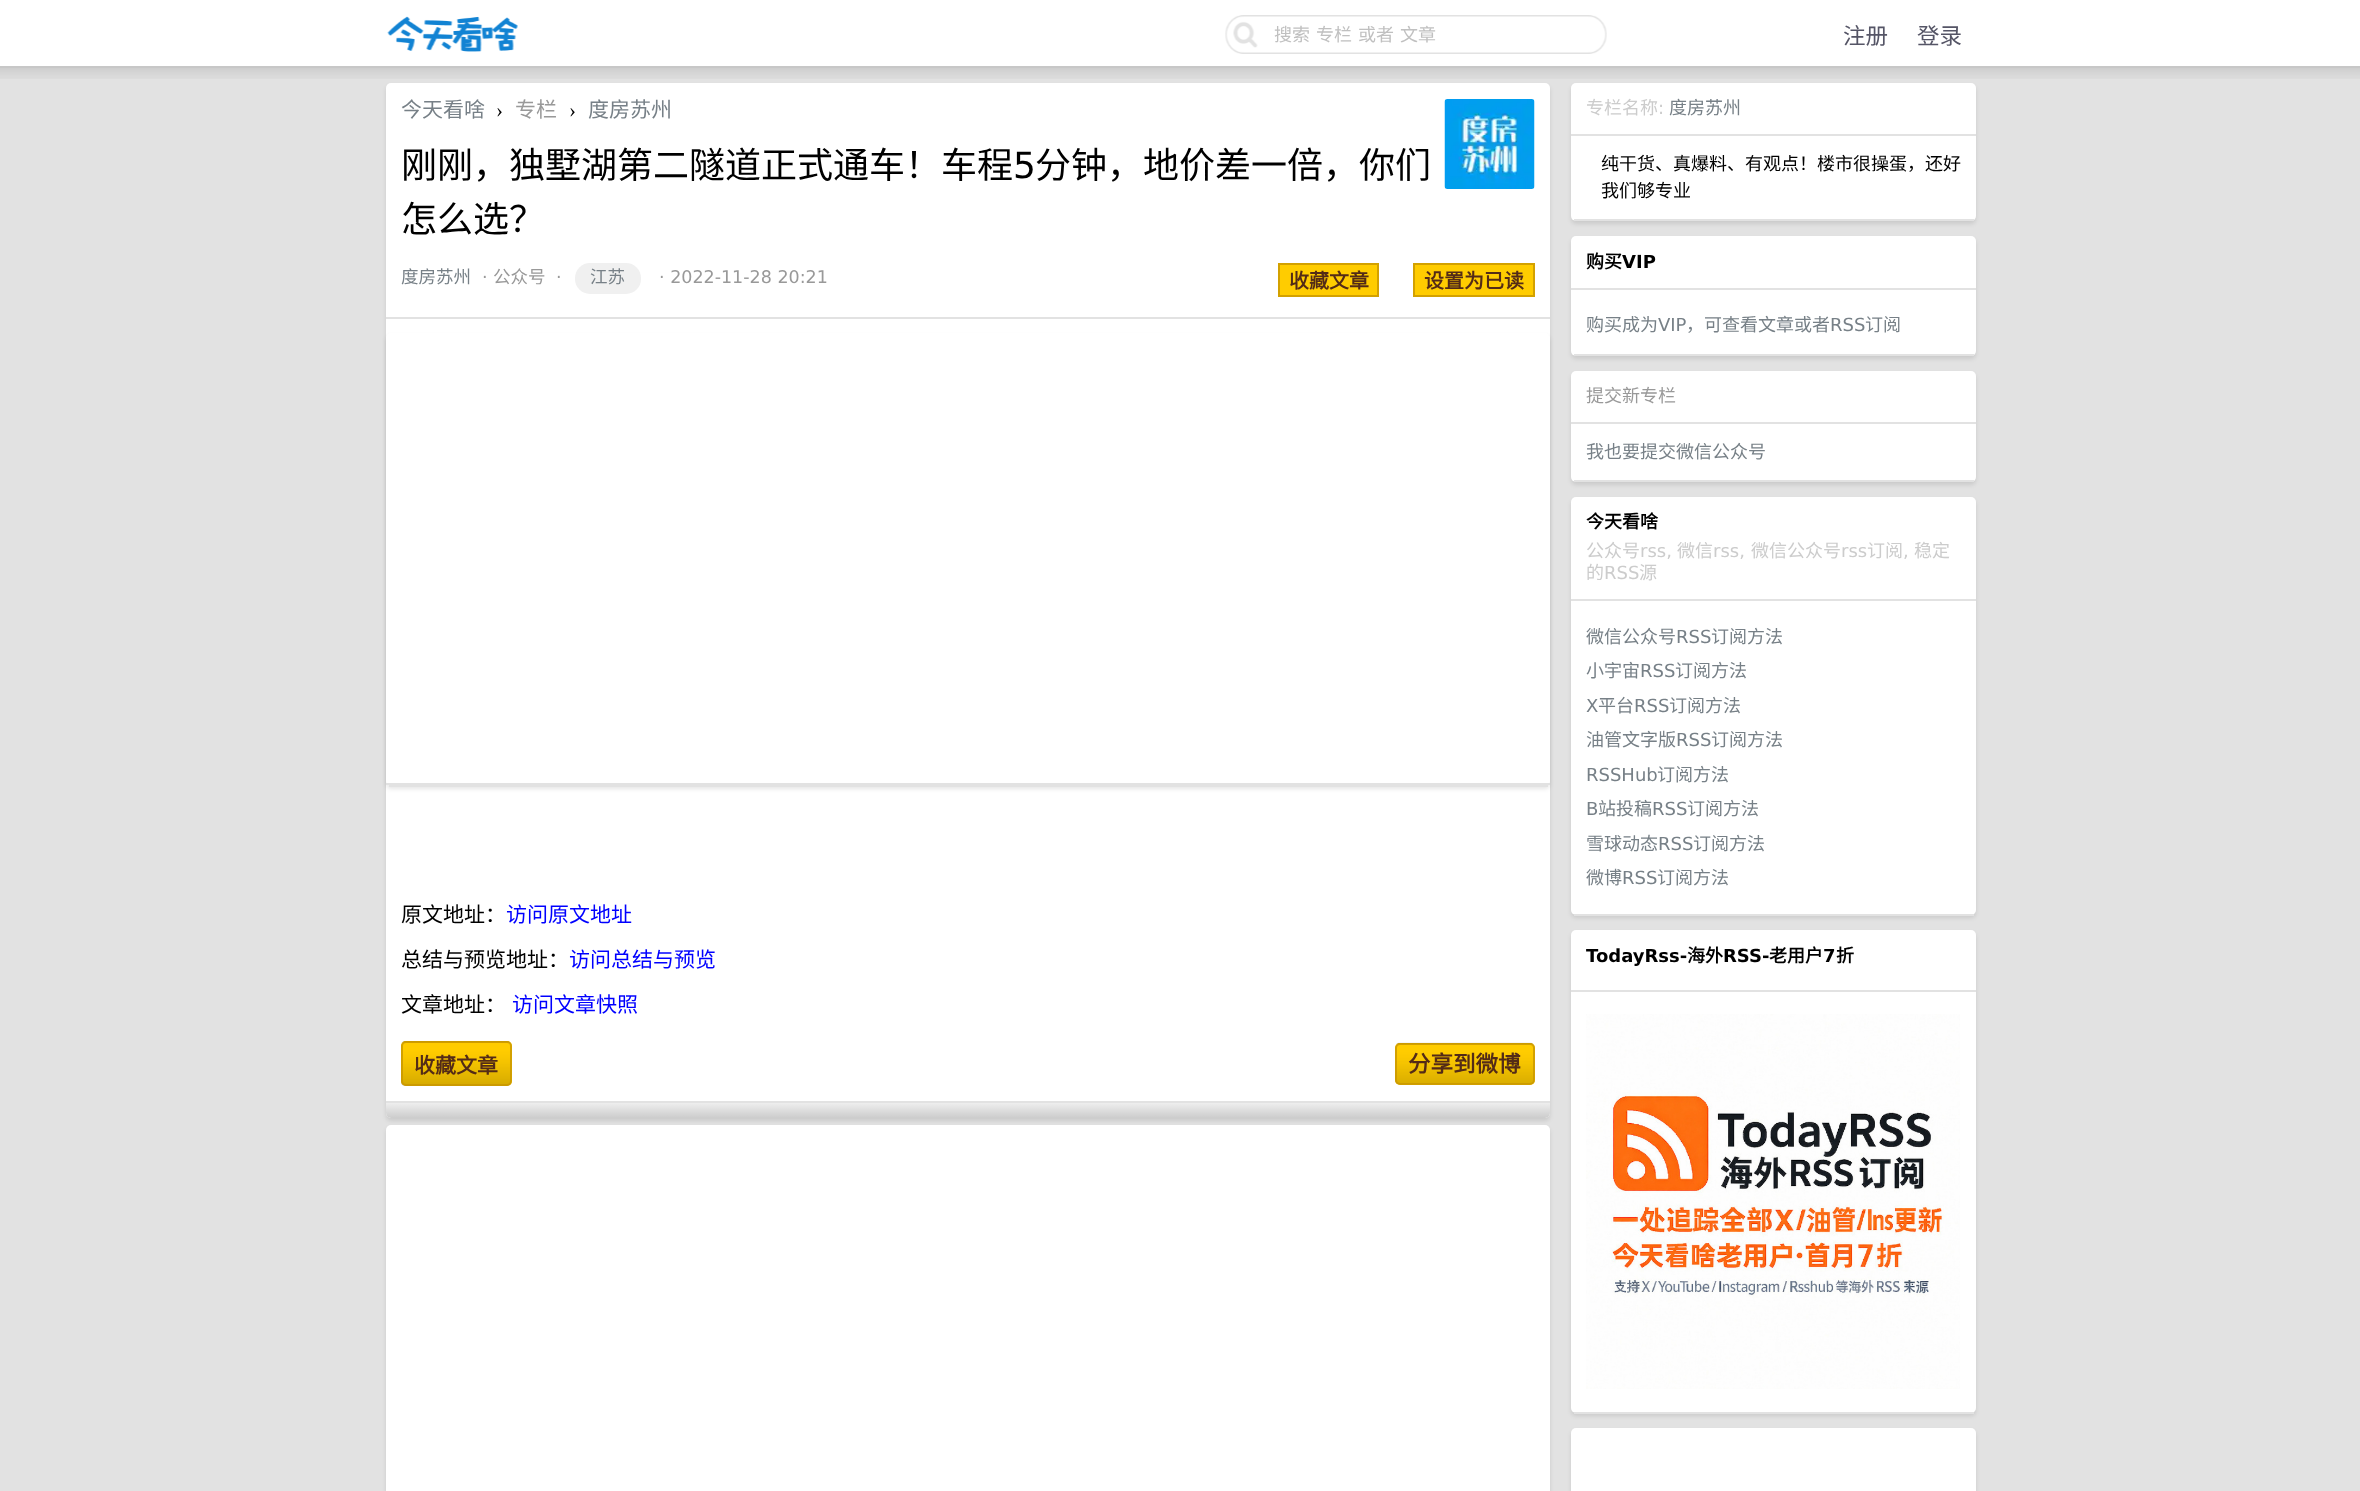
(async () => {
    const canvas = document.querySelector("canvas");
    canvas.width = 2360;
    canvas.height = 1491;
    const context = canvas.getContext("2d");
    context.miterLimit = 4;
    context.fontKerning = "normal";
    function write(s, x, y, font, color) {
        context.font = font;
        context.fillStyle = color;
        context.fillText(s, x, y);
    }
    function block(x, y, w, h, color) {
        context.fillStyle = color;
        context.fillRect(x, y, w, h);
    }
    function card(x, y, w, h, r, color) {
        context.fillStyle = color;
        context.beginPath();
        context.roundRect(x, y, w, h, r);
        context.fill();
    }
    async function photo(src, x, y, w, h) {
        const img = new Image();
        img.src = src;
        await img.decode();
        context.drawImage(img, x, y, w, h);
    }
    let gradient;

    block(0, 0, 2360, 1491, "rgb(226, 226, 226)");
    block(0, 0, 2360, 66, "rgb(255, 255, 255)");
    block(0, 66, 2360, 2, "rgb(199, 199, 199)");
    await photo("media/1.png", 387, 16, 131, 36);
    await photo("media/2.png", 1225, 15, 382, 39);
    context.wordSpacing = "2px";
    write("搜索 专栏 或者 文章", 1274, 41, "18px Noto Sans CJK SC", "rgb(192, 192, 192)");
    context.wordSpacing = "0px";
    write("注册", 1843, 44, "22.5px Noto Sans CJK SC", "rgb(85, 85, 102)");
    write("登录", 1917, 44, "22.5px Noto Sans CJK SC", "rgb(85, 85, 102)");
    await photo("media/3.png", 0, 68, 2360, 11);
    context.fillStyle = "rgba(0, 0, 0, 0.1)";
    context.filter = "blur(2px)";
    context.beginPath();
    context.roundRect(386, 86, 1164, 1035, 5);
    context.fill();
    context.filter = "none";
    card(386, 83, 1164, 1035, 5, "rgb(255, 255, 255)");
    block(386, 317, 1164, 2, "rgb(226, 226, 226)");
    write("今天看啥", 401, 117, "21px Noto Sans CJK SC", "rgb(119, 128, 135)");
    write("›", 496, 117, "21px Liberation Serif", "rgb(0, 0, 0)");
    write("专栏", 515, 117, "21px Noto Sans CJK SC", "rgb(153, 153, 153)");
    write("›", 569, 117, "21px Liberation Serif", "rgb(0, 0, 0)");
    write("度房苏州", 588, 117, "21px Noto Sans CJK SC", "rgb(119, 128, 135)");
    await photo("media/4.png", 1444, 99, 91, 90);
    write("刚刚，独墅湖第二隧道正式通车！车程", 401, 178, "36px Noto Sans CJK SC", "rgb(0, 0, 0)");
    write("5", 1013, 178, "36px DejaVu Sans", "rgb(0, 0, 0)");
    write("分钟，地价差一倍，你们", 1035, 178, "36px Noto Sans CJK SC", "rgb(0, 0, 0)");
    write("怎么选？", 401, 232, "36px Noto Sans CJK SC", "rgb(0, 0, 0)");
    write("度房苏州", 401, 283, "17.5px Noto Sans CJK SC", "rgb(119, 128, 135)");
    write("·", 482, 283, "17.5px DejaVu Sans", "rgb(153, 153, 153)");
    write("公众号", 493, 283, "17.5px Noto Sans CJK SC", "rgb(153, 153, 153)");
    write("·", 556, 283, "17.5px DejaVu Sans", "rgb(153, 153, 153)");
    card(575, 263, 66, 31, 15, "rgb(240, 240, 240)");
    write("江苏", 590, 283, "17.5px Noto Sans CJK SC", "rgb(119, 128, 135)");
    write("· 2022-11-28 20:21", 659, 283, "17.5px DejaVu Sans", "rgb(153, 153, 153)");
    context.fillStyle = "rgb(255, 204, 0)";
    context.beginPath();
    context.rect(1279, 264, 99, 32);
    context.fill();
    context.strokeStyle = "rgb(211, 161, 0)";
    context.lineWidth = 2;
    context.stroke();
    write("收藏文章", 1289, 288, "bold 20px Noto Sans CJK SC", "rgb(83, 43, 23)");
    context.fillStyle = "rgb(255, 204, 0)";
    context.beginPath();
    context.rect(1414, 264, 120, 32);
    context.fill();
    context.stroke();
    write("设置为已读", 1424, 288, "bold 20px Noto Sans CJK SC", "rgb(83, 43, 23)");
    context.fillStyle = "rgba(0, 0, 0, 0.1)";
    context.filter = "blur(2px)";
    context.beginPath();
    context.roundRect(386, 336, 1164, 453, 5);
    context.fill();
    context.filter = "none";
    card(386, 333, 1164, 453, 5, "rgb(255, 255, 255)");
    block(389, 785, 1159, 2, "rgb(226, 226, 226)");
    block(386, 783, 1164, 2, "rgb(226, 226, 226)");
    block(386, 1101, 1164, 2, "rgb(226, 226, 226)");
    write("原文地址：", 401, 922, "21px Noto Sans CJK SC", "rgb(0, 0, 0)");
    write("访问原文地址", 506, 922, "21px Noto Sans CJK SC", "rgb(0, 0, 255)");
    write("总结与预览地址：", 401, 967, "21px Noto Sans CJK SC", "rgb(0, 0, 0)");
    write("访问总结与预览", 569, 967, "21px Noto Sans CJK SC", "rgb(0, 0, 255)");
    write("文章地址：", 401, 1012, "21px Noto Sans CJK SC", "rgb(0, 0, 0)");
    write("访问文章快照", 512, 1012, "21px Noto Sans CJK SC", "rgb(0, 0, 255)");
    card(401, 1041, 111, 45, 5, "rgb(255, 204, 0)");
    await photo("media/5.png", 401, 1041, 111, 45);
    context.beginPath();
    context.roundRect(402, 1042, 109, 43, 4);
    context.strokeStyle = "rgba(200, 150, 0, 0.8)";
    context.stroke();
    write("收藏文章", 414, 1073, "bold 21px Noto Sans CJK SC", "rgb(83, 43, 23)");
    card(1395, 1043, 140, 42, 5, "rgb(255, 204, 0)");
    await photo("media/6.png", 1395, 1042, 139, 43);
    context.beginPath();
    context.roundRect(1396, 1044, 138, 40, 4);
    context.stroke();
    write("分享到微博", 1408, 1072, "bold 22.5px Noto Sans CJK SC", "rgb(83, 43, 23)");
    gradient = context.createLinearGradient(968, 1103, 968, 1118);
    gradient.addColorStop(0, "rgb(238, 238, 238)");
    gradient.addColorStop(1, "rgb(204, 204, 204)");
    context.fillStyle = gradient;
    context.beginPath();
    context.roundRect(386, 1103, 1164, 15, [0, 0, 5, 5]);
    context.fill();
    context.fillStyle = "rgba(0, 0, 0, 0.1)";
    context.filter = "blur(2px)";
    context.beginPath();
    context.roundRect(386, 1128, 1164, 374, 5);
    context.fill();
    context.filter = "none";
    card(386, 1125, 1164, 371, 5, "rgb(255, 255, 255)");
    context.fillStyle = "rgba(0, 0, 0, 0.1)";
    context.filter = "blur(2px)";
    context.beginPath();
    context.roundRect(1571, 86, 405, 138, 5);
    context.fill();
    context.filter = "none";
    card(1571, 83, 405, 138, 5, "rgb(255, 255, 255)");
    block(1574, 219, 400, 2, "rgb(226, 226, 226)");
    block(1571, 134, 405, 2, "rgb(226, 226, 226)");
    write("专栏名称", 1586, 114, "18px Noto Sans CJK SC", "rgb(204, 204, 204)");
    write(":", 1658, 114, "18px DejaVu Sans", "rgb(204, 204, 204)");
    write("度房苏州", 1669, 114, "18px Noto Sans CJK SC", "rgb(119, 128, 135)");
    write("纯干货、真爆料、有观点！楼市很操蛋，还好", 1601, 170, "18px Noto Sans CJK SC", "rgb(0, 0, 0)");
    write("我们够专业", 1601, 197, "18px Noto Sans CJK SC", "rgb(0, 0, 0)");
    context.fillStyle = "rgba(0, 0, 0, 0.1)";
    context.filter = "blur(2px)";
    context.beginPath();
    context.roundRect(1571, 239, 405, 120, 5);
    context.fill();
    context.filter = "none";
    card(1571, 236, 405, 120, 5, "rgb(255, 255, 255)");
    block(1574, 354, 400, 2, "rgb(226, 226, 226)");
    block(1571, 288, 405, 2, "rgb(226, 226, 226)");
    write("购买", 1586, 268, "bold 18px Noto Sans CJK SC", "rgb(0, 0, 0)");
    write("VIP", 1622, 268, "bold 18px DejaVu Sans", "rgb(0, 0, 0)");
    write("购买成为", 1586, 331, "18px Noto Sans CJK SC", "rgb(119, 128, 135)");
    write("VIP", 1658, 331, "18px DejaVu Sans", "rgb(119, 128, 135)");
    write("，可查看文章或者", 1686, 331, "18px Noto Sans CJK SC", "rgb(119, 128, 135)");
    write("RSS", 1830, 331, "18px DejaVu Sans", "rgb(119, 128, 135)");
    write("订阅", 1865, 331, "18px Noto Sans CJK SC", "rgb(119, 128, 135)");
    context.fillStyle = "rgba(0, 0, 0, 0.1)";
    context.filter = "blur(2px)";
    context.beginPath();
    context.roundRect(1571, 374, 405, 111, 5);
    context.fill();
    context.filter = "none";
    card(1571, 371, 405, 111, 5, "rgb(255, 255, 255)");
    block(1574, 480, 400, 2, "rgb(226, 226, 226)");
    block(1571, 422, 405, 2, "rgb(226, 226, 226)");
    write("提交新专栏", 1586, 402, "18px Noto Sans CJK SC", "rgb(153, 153, 153)");
    write("我也要提交微信公众号", 1586, 458, "18px Noto Sans CJK SC", "rgb(119, 128, 135)");
    context.fillStyle = "rgba(0, 0, 0, 0.1)";
    context.filter = "blur(2px)";
    context.beginPath();
    context.roundRect(1571, 500, 405, 418, 5);
    context.fill();
    context.filter = "none";
    card(1571, 497, 405, 418, 5, "rgb(255, 255, 255)");
    block(1574, 914, 400, 2, "rgb(226, 226, 226)");
    block(1571, 599, 405, 2, "rgb(226, 226, 226)");
    write("今天看啥", 1586, 528, "bold 18px Noto Sans CJK SC", "rgb(0, 0, 0)");
    write("公众号", 1586, 557, "18px Noto Sans CJK SC", "rgb(204, 204, 204)");
    write("rss,", 1640, 557, "18px DejaVu Sans", "rgb(204, 204, 204)");
    write("微信", 1677, 557, "18px Noto Sans CJK SC", "rgb(204, 204, 204)");
    write("rss,", 1713, 557, "18px DejaVu Sans", "rgb(204, 204, 204)");
    write("微信公众号", 1751, 557, "18px Noto Sans CJK SC", "rgb(204, 204, 204)");
    write("rss", 1841, 557, "18px DejaVu Sans", "rgb(204, 204, 204)");
    write("订阅", 1867, 557, "18px Noto Sans CJK SC", "rgb(204, 204, 204)");
    write(",", 1903, 557, "18px DejaVu Sans", "rgb(204, 204, 204)");
    write("稳定", 1914, 557, "18px Noto Sans CJK SC", "rgb(204, 204, 204)");
    write("的", 1586, 579, "18px Noto Sans CJK SC", "rgb(204, 204, 204)");
    write("RSS", 1604, 579, "18px DejaVu Sans", "rgb(204, 204, 204)");
    write("源", 1639, 579, "18px Noto Sans CJK SC", "rgb(204, 204, 204)");
    write("微信公众号", 1586, 643, "18px Noto Sans CJK SC", "rgb(119, 128, 135)");
    write("RSS", 1676, 643, "18px DejaVu Sans", "rgb(119, 128, 135)");
    write("订阅方法", 1711, 643, "18px Noto Sans CJK SC", "rgb(119, 128, 135)");
    write("小宇宙", 1586, 677, "18px Noto Sans CJK SC", "rgb(119, 128, 135)");
    write("RSS", 1640, 677, "18px DejaVu Sans", "rgb(119, 128, 135)");
    write("订阅方法", 1675, 677, "18px Noto Sans CJK SC", "rgb(119, 128, 135)");
    write("X", 1586, 712, "18px DejaVu Sans", "rgb(119, 128, 135)");
    write("平台", 1598, 712, "18px Noto Sans CJK SC", "rgb(119, 128, 135)");
    write("RSS", 1634, 712, "18px DejaVu Sans", "rgb(119, 128, 135)");
    write("订阅方法", 1669, 712, "18px Noto Sans CJK SC", "rgb(119, 128, 135)");
    write("油管文字版", 1586, 746, "18px Noto Sans CJK SC", "rgb(119, 128, 135)");
    write("RSS", 1676, 746, "18px DejaVu Sans", "rgb(119, 128, 135)");
    write("订阅方法", 1711, 746, "18px Noto Sans CJK SC", "rgb(119, 128, 135)");
    write("RSSHub", 1586, 781, "18px DejaVu Sans", "rgb(119, 128, 135)");
    write("订阅方法", 1657, 781, "18px Noto Sans CJK SC", "rgb(119, 128, 135)");
    write("B", 1586, 815, "18px DejaVu Sans", "rgb(119, 128, 135)");
    write("站投稿", 1598, 815, "18px Noto Sans CJK SC", "rgb(119, 128, 135)");
    write("RSS", 1652, 815, "18px DejaVu Sans", "rgb(119, 128, 135)");
    write("订阅方法", 1687, 815, "18px Noto Sans CJK SC", "rgb(119, 128, 135)");
    write("雪球动态", 1586, 850, "18px Noto Sans CJK SC", "rgb(119, 128, 135)");
    write("RSS", 1658, 850, "18px DejaVu Sans", "rgb(119, 128, 135)");
    write("订阅方法", 1693, 850, "18px Noto Sans CJK SC", "rgb(119, 128, 135)");
    write("微博", 1586, 884, "18px Noto Sans CJK SC", "rgb(119, 128, 135)");
    write("RSS", 1622, 884, "18px DejaVu Sans", "rgb(119, 128, 135)");
    write("订阅方法", 1657, 884, "18px Noto Sans CJK SC", "rgb(119, 128, 135)");
    context.fillStyle = "rgba(0, 0, 0, 0.1)";
    context.filter = "blur(2px)";
    context.beginPath();
    context.roundRect(1571, 933, 405, 483, 5);
    context.fill();
    context.filter = "none";
    card(1571, 930, 405, 483, 5, "rgb(255, 255, 255)");
    block(1574, 1412, 400, 2, "rgb(226, 226, 226)");
    block(1571, 990, 405, 2, "rgb(226, 226, 226)");
    write("TodayRss-", 1586, 962, "bold 18px DejaVu Sans", "rgb(0, 0, 0)");
    write("海外", 1687, 962, "bold 18px Noto Sans CJK SC", "rgb(0, 0, 0)");
    write("RSS-", 1723, 962, "bold 18px DejaVu Sans", "rgb(0, 0, 0)");
    write("老用户", 1769, 962, "bold 18px Noto Sans CJK SC", "rgb(0, 0, 0)");
    write("7", 1823, 962, "bold 18px DejaVu Sans", "rgb(0, 0, 0)");
    write("折", 1836, 962, "bold 18px Noto Sans CJK SC", "rgb(0, 0, 0)");
    await photo("media/7.png", 1586, 1014, 374, 375);
    context.fillStyle = "rgba(0, 0, 0, 0.1)";
    context.filter = "blur(2px)";
    context.beginPath();
    context.roundRect(1571, 1431, 405, 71, 5);
    context.fill();
    context.filter = "none";
    card(1571, 1428, 405, 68, 5, "rgb(255, 255, 255)");
})();
